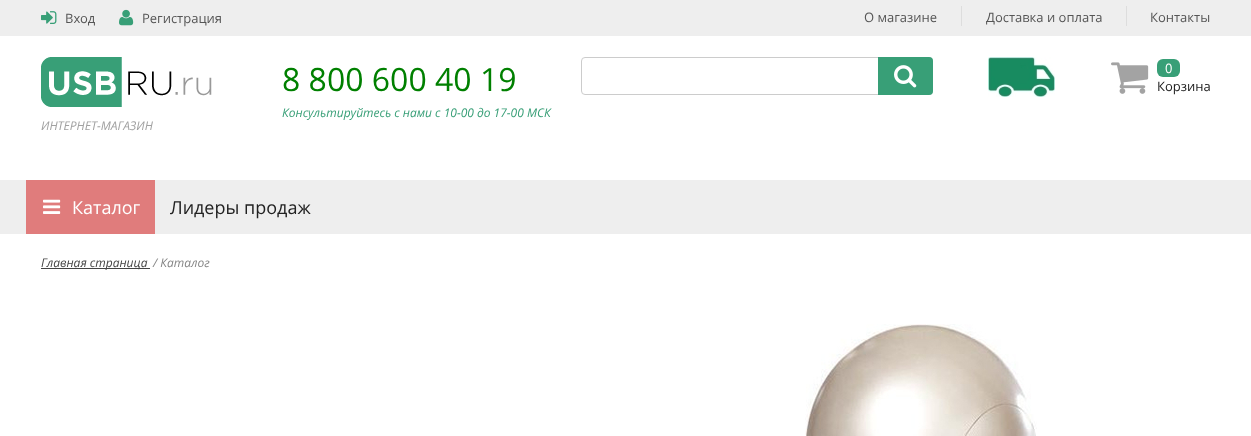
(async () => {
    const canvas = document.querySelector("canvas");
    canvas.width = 1251;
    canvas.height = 436;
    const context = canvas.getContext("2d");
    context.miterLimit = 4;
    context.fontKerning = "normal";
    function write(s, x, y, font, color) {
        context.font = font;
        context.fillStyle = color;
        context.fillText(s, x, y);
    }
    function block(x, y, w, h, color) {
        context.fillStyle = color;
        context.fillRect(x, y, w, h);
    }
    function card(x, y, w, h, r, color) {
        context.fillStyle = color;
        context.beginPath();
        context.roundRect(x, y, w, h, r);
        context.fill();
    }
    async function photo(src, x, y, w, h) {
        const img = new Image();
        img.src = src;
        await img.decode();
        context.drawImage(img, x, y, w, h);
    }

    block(0, 0, 1251, 436, "rgb(255, 255, 255)");
    block(0, 0, 1251, 36, "rgb(238, 238, 238)");
    await photo("media/1.png", 41, 11, 16, 13);
    write("Вход", 65, 23, "13px Open Sans", "rgb(85, 85, 85)");
    await photo("media/2.png", 119, 9, 15, 17);
    write("Регистрация", 142, 23, "13px Open Sans", "rgb(85, 85, 85)");
    write("О магазине", 864, 22, "13px Open Sans", "rgb(85, 85, 85)");
    block(961, 6, 1, 20, "rgb(221, 221, 221)");
    write("Доставка и оплата", 986, 22, "13px Open Sans", "rgb(85, 85, 85)");
    block(1126, 6, 1, 20, "rgb(221, 221, 221)");
    write("Контакты", 1150, 22, "13px Open Sans", "rgb(85, 85, 85)");
    write("8 800 600 40 19", 282, 91, "32px Open Sans", "rgb(0, 128, 0)");
    write("Консультируйтесь с нами c 10-00 до 17-00 МСК", 282, 117, "italic 12px Open Sans", "rgb(56, 159, 119)");
    await photo("media/3.png", 41, 57, 171, 50);
    write("ИНТЕРНЕТ-МАГАЗИН", 41, 130, "italic 12px Open Sans", "rgb(161, 161, 161)");
    context.beginPath();
    context.roundRect(581.5, 57.5, 351, 37, 3.5);
    context.strokeStyle = "rgb(204, 204, 204)";
    context.stroke();
    context.fillStyle = "rgb(56, 159, 119)";
    context.beginPath();
    context.roundRect(878, 57, 55, 38, [0, 4, 4, 0]);
    context.fill();
    await photo("media/4.png", 894, 65, 23, 23);
    await photo("media/5.png", 988, 57, 67, 40);
    await photo("media/6.png", 1111, 62, 38, 32);
    card(1157, 59, 23, 18, 6, "rgb(56, 159, 119)");
    write("0", 1165, 73, "13px Open Sans", "rgb(255, 255, 255)");
    write("Корзина", 1157, 91, "13px Open Sans", "rgb(33, 33, 33)");
    block(0, 180, 1251, 54, "rgb(238, 238, 238)");
    block(26, 180, 129, 54, "rgb(224, 124, 124)");
    await photo("media/7.png", 43, 199, 18, 15);
    write("Каталог", 72, 214, "18px Open Sans", "rgb(255, 255, 255)");
    write("Лидеры продаж", 170, 214, "18px Open Sans", "rgb(33, 33, 33)");
    block(41, 268, 109, 1, "rgb(68, 68, 68)");
    write("Главная страница", 41, 267, "italic 12px Open Sans", "rgb(68, 68, 68)");
    write("/ Каталог", 153, 267, "italic 12px Open Sans", "rgb(134, 134, 134)");
    await photo("media/8.png", 805, 324, 232, 112);
})();
